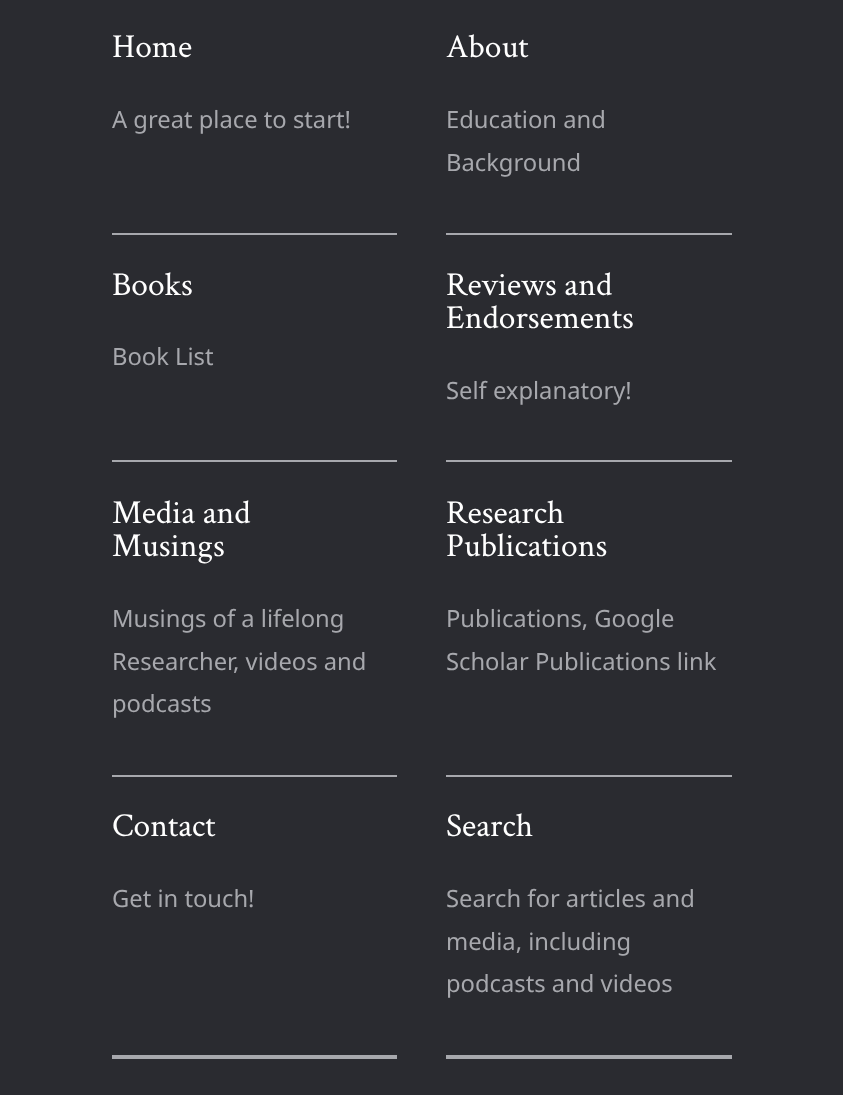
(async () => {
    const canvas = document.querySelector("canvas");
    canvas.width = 843;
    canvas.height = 1095;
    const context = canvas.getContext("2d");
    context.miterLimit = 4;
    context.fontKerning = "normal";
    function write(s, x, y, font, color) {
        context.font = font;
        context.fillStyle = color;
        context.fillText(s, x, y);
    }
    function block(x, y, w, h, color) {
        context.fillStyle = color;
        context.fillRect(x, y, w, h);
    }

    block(0, 0, 843, 1095, "rgb(42, 43, 48)");
    write("Home", 112, 57, "33.5px Crimson Text", "rgb(255, 255, 255)");
    write("A great place to start!", 112, 128, "23.75px Noto Sans", "rgb(167, 168, 173)");
    write("About", 446, 57, "33.5px Crimson Text", "rgb(255, 255, 255)");
    write("Education and", 446, 128, "23.75px Noto Sans", "rgb(167, 168, 173)");
    write("Background", 446, 171, "23.75px Noto Sans", "rgb(167, 168, 173)");
    block(112, 233, 285, 2, "rgb(167, 168, 173)");
    write("Books", 112, 295, "33.5px Crimson Text", "rgb(255, 255, 255)");
    write("Book List", 112, 365, "23.75px Noto Sans", "rgb(167, 168, 173)");
    block(446, 233, 286, 2, "rgb(167, 168, 173)");
    write("Reviews and", 446, 295, "33.5px Crimson Text", "rgb(255, 255, 255)");
    write("Endorsements", 446, 328, "33.5px Crimson Text", "rgb(255, 255, 255)");
    write("Self explanatory!", 446, 399, "23.75px Noto Sans", "rgb(167, 168, 173)");
    block(112, 460, 285, 2, "rgb(167, 168, 173)");
    write("Media and", 112, 523, "33.5px Crimson Text", "rgb(255, 255, 255)");
    write("Musings", 112, 556, "33.5px Crimson Text", "rgb(255, 255, 255)");
    write("Musings of a lifelong", 112, 627, "23.75px Noto Sans", "rgb(167, 168, 173)");
    write("Researcher, videos and", 112, 670, "23.75px Noto Sans", "rgb(167, 168, 173)");
    write("podcasts", 112, 712, "23.75px Noto Sans", "rgb(167, 168, 173)");
    block(446, 460, 286, 2, "rgb(167, 168, 173)");
    write("Research", 446, 523, "33.5px Crimson Text", "rgb(255, 255, 255)");
    write("Publications", 446, 556, "33.5px Crimson Text", "rgb(255, 255, 255)");
    write("Publications, Google", 446, 627, "23.75px Noto Sans", "rgb(167, 168, 173)");
    write("Scholar Publications link", 446, 670, "23.75px Noto Sans", "rgb(167, 168, 173)");
    block(112, 775, 285, 2, "rgb(167, 168, 173)");
    write("Contact", 112, 836, "33.5px Crimson Text", "rgb(255, 255, 255)");
    write("Get in touch!", 112, 907, "23.75px Noto Sans", "rgb(167, 168, 173)");
    block(446, 775, 286, 2, "rgb(167, 168, 173)");
    write("Search", 446, 836, "33.5px Crimson Text", "rgb(255, 255, 255)");
    write("Search for articles and", 446, 907, "23.75px Noto Sans", "rgb(167, 168, 173)");
    write("media, including", 446, 950, "23.75px Noto Sans", "rgb(167, 168, 173)");
    write("podcasts and videos", 446, 992, "23.75px Noto Sans", "rgb(167, 168, 173)");
    block(112, 1055, 285, 4, "rgb(167, 168, 173)");
    block(446, 1055, 286, 4, "rgb(167, 168, 173)");
})();
